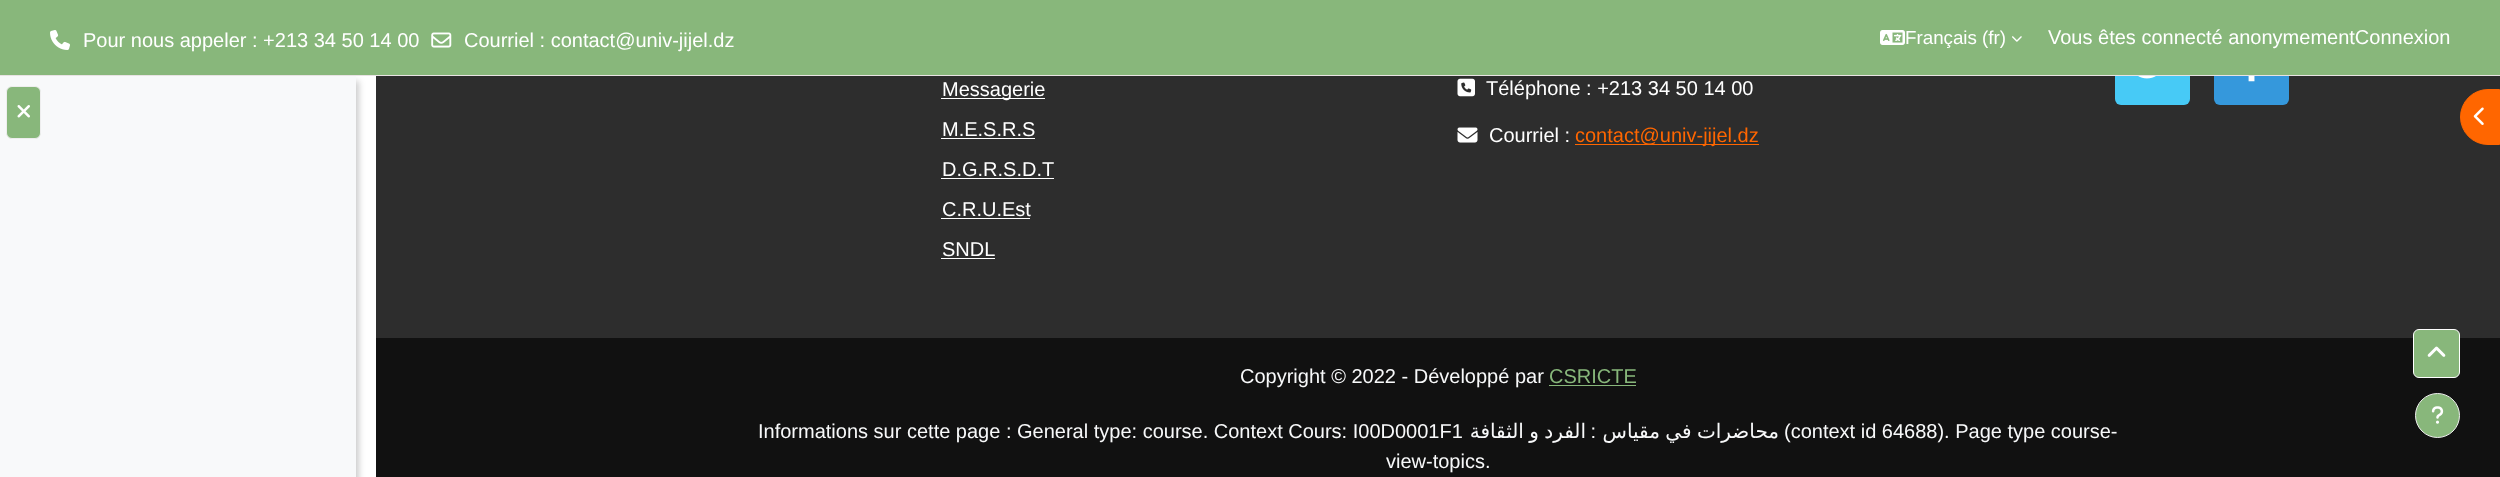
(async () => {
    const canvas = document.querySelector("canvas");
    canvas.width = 2500;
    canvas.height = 477;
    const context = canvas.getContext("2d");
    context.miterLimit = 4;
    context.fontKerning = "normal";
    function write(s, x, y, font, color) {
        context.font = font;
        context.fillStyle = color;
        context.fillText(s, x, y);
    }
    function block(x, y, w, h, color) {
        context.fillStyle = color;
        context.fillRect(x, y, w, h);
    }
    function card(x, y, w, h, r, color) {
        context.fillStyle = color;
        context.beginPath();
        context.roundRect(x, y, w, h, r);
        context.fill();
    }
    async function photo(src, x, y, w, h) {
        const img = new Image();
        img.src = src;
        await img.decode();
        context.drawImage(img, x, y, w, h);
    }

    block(0, 0, 2500, 477, "rgb(255, 255, 255)");
    context.fillStyle = "rgba(0, 0, 0, 0.2)";
    context.filter = "blur(3px)";
    context.beginPath();
    context.rect(3, 81, 356, 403);
    context.fill();
    context.filter = "none";
    block(376, 76, 2124, 262, "rgb(45, 45, 45)");
    card(2115, 30, 75, 75, 6, "rgb(71, 202, 246)");
    card(2214, 30, 75, 75, 6, "rgb(53, 152, 220)");
    block(0, 0, 2500, 75, "rgb(136, 183, 123)");
    block(0, 75, 2500, 1, "rgb(232, 227, 227)");
    await photo("media/1.png", 50, 30, 20, 20);
    write("Pour nous appeler : +213 34 50 14 00", 83, 47, "20px Liberation Sans", "rgb(255, 255, 255)");
    await photo("media/2.png", 431, 32, 21, 16);
    write("Courriel : contact@univ-jijel.dz", 464, 47, "20px Liberation Sans", "rgb(255, 255, 255)");
    await photo("media/3.png", 1880, 30, 25, 15);
    write("Français (fr)", 1905, 44, "18.75px Liberation Sans", "rgb(255, 255, 255)");
    await photo("media/4.png", 2012, 36, 10, 6);
    write("Vous êtes connecté anonymementConnexion", 2048, 44, "20px Liberation Sans", "rgb(255, 255, 255)");
    block(0, 76, 356, 401, "rgb(248, 249, 250)");
    context.fillStyle = "rgb(136, 183, 123)";
    context.beginPath();
    context.roundRect(6.5, 86.5, 34, 52, 5.5);
    context.fill();
    context.strokeStyle = "rgb(238, 238, 238)";
    context.stroke();
    await photo("media/5.png", 17, 105, 13, 13);
    await photo("media/6.png", 2138, 76, 18, 3);
    await photo("media/7.png", 2248, 76, 7, 6);
    block(941, 98, 104, 1, "rgb(255, 255, 255)");
    write("Messagerie", 942, 96, "20px Liberation Sans", "rgb(255, 255, 255)");
    write("M.E.S.R.S", 942, 136, "20px Liberation Sans", "rgb(255, 255, 255)");
    block(941, 138, 94, 1, "rgb(255, 255, 255)");
    write("D.G.R.S.D.T", 942, 176, "20px Liberation Sans", "rgb(255, 255, 255)");
    block(941, 178, 113, 1, "rgb(255, 255, 255)");
    write("C.R.U.Est", 942, 216, "20px Liberation Sans", "rgb(255, 255, 255)");
    block(941, 218, 89, 1, "rgb(255, 255, 255)");
    write("SNDL", 942, 256, "20px Liberation Sans", "rgb(255, 255, 255)");
    block(941, 258, 54, 1, "rgb(255, 255, 255)");
    await photo("media/8.png", 1457, 78, 18, 19);
    write("Téléphone : +213 34 50 14 00", 1486, 95, "20px Liberation Sans", "rgb(255, 255, 255)");
    await photo("media/9.png", 1457, 127, 21, 16);
    write("Courriel :", 1489, 142, "20px Liberation Sans", "rgb(255, 255, 255)");
    block(1575, 144, 184, 1, "rgb(255, 102, 0)");
    write("contact@univ-jijel.dz", 1575, 142, "20px Liberation Sans", "rgb(255, 102, 0)");
    block(376, 338, 2124, 139, "rgb(17, 17, 17)");
    write("Copyright © 2022 - Développé par", 1240, 383, "20px Liberation Sans", "rgb(248, 249, 250)");
    write("CSRICTE", 1549, 383, "20px Liberation Sans", "rgb(136, 183, 123)");
    block(1549, 385, 87, 1, "rgb(136, 183, 123)");
    write("Informations sur cette page : General type: course. Context Cours: I00D0001F1", 758, 438, "20px Liberation Sans", "rgb(248, 249, 250)");
    context.wordSpacing = "-1px";
    context.direction = "rtl";
    write("الفرد و الثقافة", 1586, 438, "20px DejaVu Sans", "rgb(248, 249, 250)");
    context.wordSpacing = "0px";
    write(":", 1596, 438, "20px Liberation Sans", "rgb(248, 249, 250)");
    context.wordSpacing = "-1px";
    write("محاضرات في مقياس", 1779, 438, "20px DejaVu Sans", "rgb(248, 249, 250)");
    context.wordSpacing = "0px";
    context.direction = "ltr";
    write("(context id 64688). Page type course-", 1784, 438, "20px Liberation Sans", "rgb(248, 249, 250)");
    write("view-topics.", 1386, 468, "20px Liberation Sans", "rgb(248, 249, 250)");
    context.fillStyle = "rgb(136, 183, 123)";
    context.beginPath();
    context.arc(2437.5, 415.5, 22, 0, Math.PI * 2);
    context.fill();
    context.stroke();
    await photo("media/10.png", 2431, 406, 13, 18);
    context.fillStyle = "rgb(255, 102, 0)";
    context.beginPath();
    context.roundRect(2460.5, 89.5, 39, 55, [27.5, 0, 0, 27.5]);
    context.fill();
    context.strokeStyle = "rgb(255, 102, 0)";
    context.stroke();
    await photo("media/11.png", 2473, 107, 11, 18);
    context.fillStyle = "rgb(136, 183, 123)";
    context.beginPath();
    context.roundRect(2413.5, 329.5, 46, 48, 5.5);
    context.fill();
    context.strokeStyle = "rgb(255, 255, 255)";
    context.stroke();
    await photo("media/12.png", 2427, 346, 19, 11);
})();
